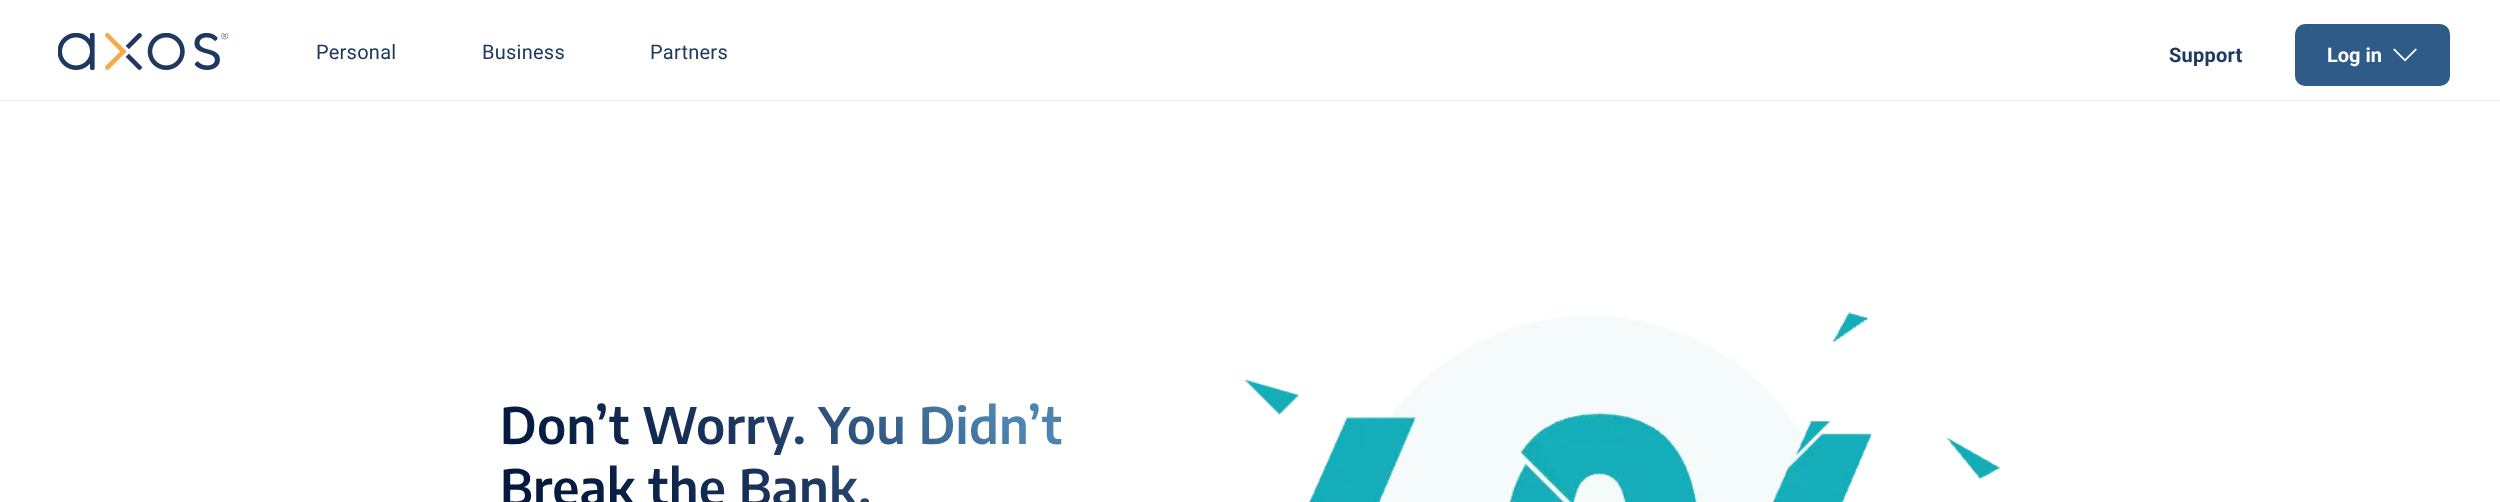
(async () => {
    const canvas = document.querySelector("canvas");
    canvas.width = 2500;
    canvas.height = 502;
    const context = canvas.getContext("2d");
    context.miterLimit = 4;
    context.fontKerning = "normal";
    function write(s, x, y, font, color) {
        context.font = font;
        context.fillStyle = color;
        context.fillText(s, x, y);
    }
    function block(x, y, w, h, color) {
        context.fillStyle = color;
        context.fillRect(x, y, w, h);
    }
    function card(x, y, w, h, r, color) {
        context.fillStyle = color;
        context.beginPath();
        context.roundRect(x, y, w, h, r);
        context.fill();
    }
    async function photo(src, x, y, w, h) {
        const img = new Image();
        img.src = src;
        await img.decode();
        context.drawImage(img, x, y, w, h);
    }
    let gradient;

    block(0, 0, 2500, 502, "rgb(255, 255, 255)");
    block(0, 100, 2500, 1, "rgb(235, 235, 235)");
    await photo("media/1.png", 58, 33, 171, 37);
    context.letterSpacing = "0.25px";
    write("Personal", 316, 59, "20px Roboto", "rgb(30, 56, 96)");
    write("Business", 482, 59, "20px Roboto", "rgb(30, 56, 96)");
    write("Partners", 650, 59, "20px Roboto", "rgb(30, 56, 96)");
    write("Support", 2169, 62, "bold 20px Roboto", "rgb(30, 56, 96)");
    card(2295, 24, 155, 62, 10, "rgb(47, 91, 136)");
    context.letterSpacing = "0px";
    write("Log in", 2327, 62, "bold 20px Roboto", "rgb(255, 255, 255)");
    context.beginPath();
    context.moveTo(2393, 49.5);
    context.lineTo(2405, 61.5);
    context.lineTo(2417, 49.5);
    context.lineTo(2415.5, 48.5);
    context.lineTo(2405, 59);
    context.lineTo(2394.5, 48.5);
    context.closePath();
    context.fill();
    context.letterSpacing = "0.25px";
    context.font = "600 50px Encode Sans Condensed";
    gradient = context.createLinearGradient(615, 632, 970, 277);
    gradient.addColorStop(0.15, "rgb(5, 26, 63)");
    gradient.addColorStop(0.48, "rgb(30, 56, 96)");
    gradient.addColorStop(0.85, "rgb(77, 133, 176)");
    context.fillStyle = gradient;
    context.fillText("Don’t Worry. You Didn’t", 500, 444);
    context.fillText("Break the Bank.", 500, 506);
    await photo("media/2.png", 1245, 312, 755, 190);
})();
